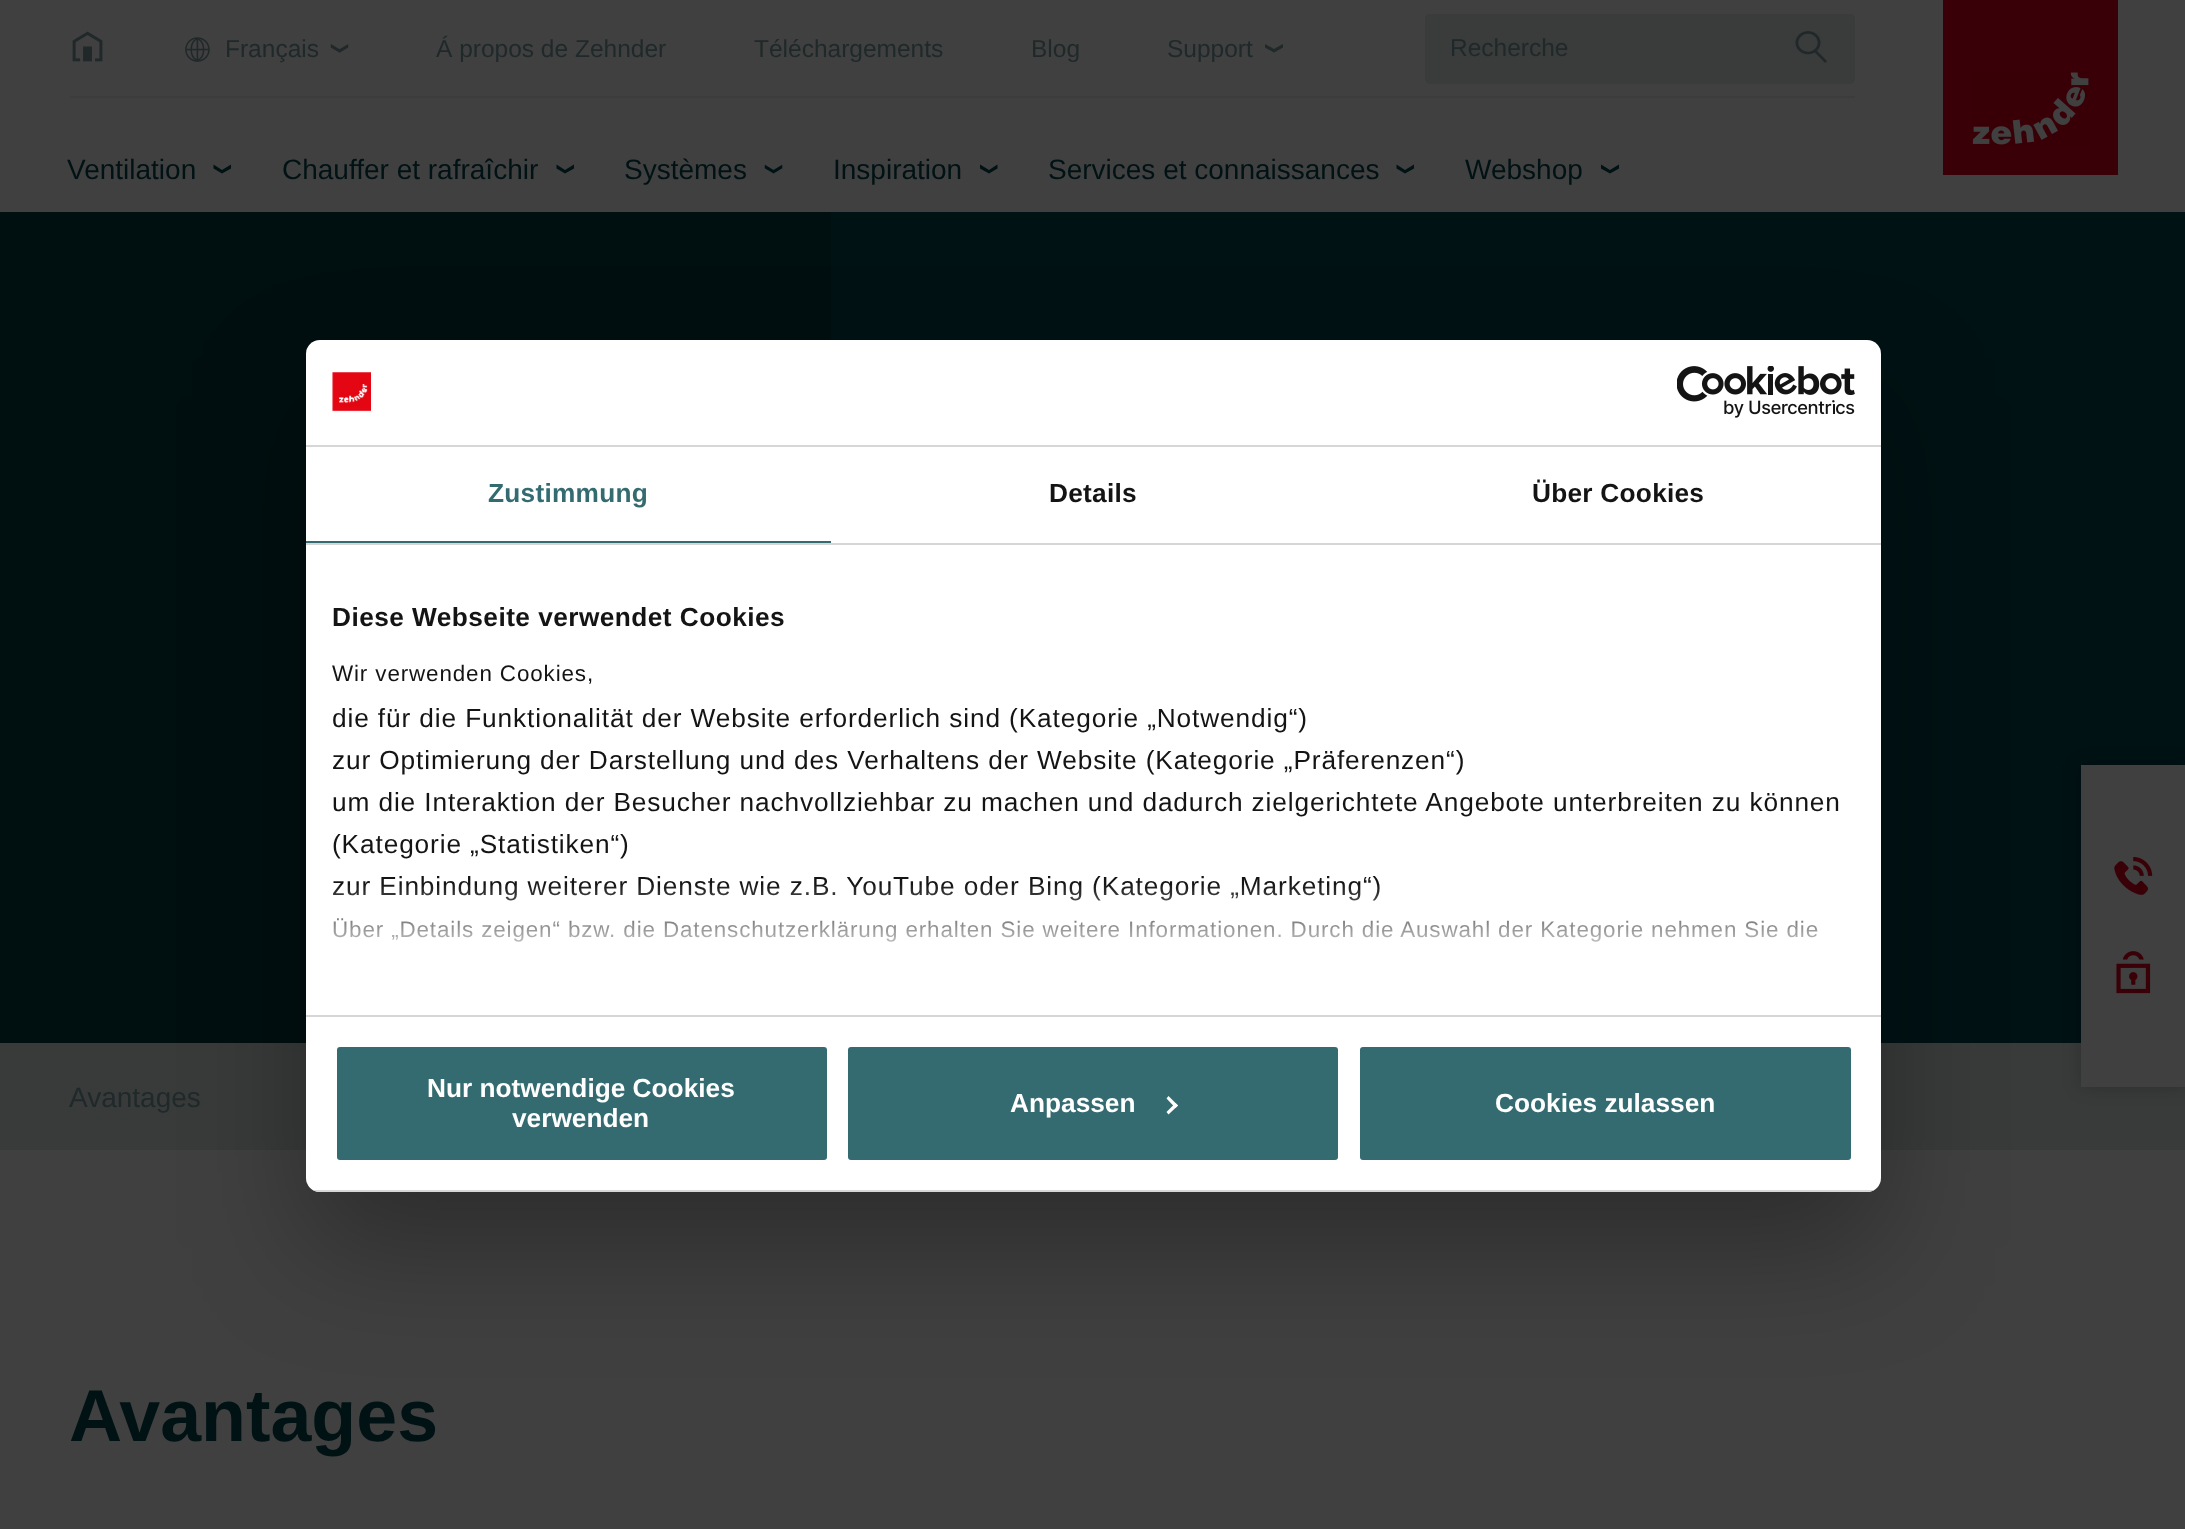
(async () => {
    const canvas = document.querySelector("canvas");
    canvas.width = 2185;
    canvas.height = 1529;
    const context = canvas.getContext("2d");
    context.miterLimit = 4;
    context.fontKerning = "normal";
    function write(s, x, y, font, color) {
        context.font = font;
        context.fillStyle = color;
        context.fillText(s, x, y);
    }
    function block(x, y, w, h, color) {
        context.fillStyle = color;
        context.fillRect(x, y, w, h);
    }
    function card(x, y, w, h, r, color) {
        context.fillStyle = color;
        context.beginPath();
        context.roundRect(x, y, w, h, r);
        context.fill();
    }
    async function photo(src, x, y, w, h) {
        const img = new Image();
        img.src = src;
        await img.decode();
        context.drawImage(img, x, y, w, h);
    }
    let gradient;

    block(0, 0, 2185, 1529, "rgb(64, 64, 64)");
    block(70, 96, 1785, 2, "rgb(59, 60, 60)");
    await photo("media/1.png", 72, 31, 31, 31);
    await photo("media/2.png", 185, 37, 25, 25);
    write("Français", 225, 57, "24.5px Liberation Sans", "rgb(32, 41, 42)");
    await photo("media/3.png", 330, 44, 19, 9);
    write("Á propos de Zehnder", 436, 57, "24.5px Liberation Sans", "rgb(32, 41, 42)");
    write("Téléchargements", 754, 57, "24.5px Liberation Sans", "rgb(32, 41, 42)");
    write("Blog", 1031, 57, "24.5px Liberation Sans", "rgb(32, 41, 42)");
    write("Support", 1167, 57, "24.5px Liberation Sans", "rgb(32, 41, 42)");
    context.beginPath();
    context.moveTo(1265, 44);
    context.lineTo(1274, 49);
    context.lineTo(1283, 44);
    context.lineTo(1283, 47.5);
    context.lineTo(1274, 52.5);
    context.lineTo(1265, 47.5);
    context.closePath();
    context.fill();
    card(1425, 14, 430, 70, 5, "rgb(58, 59, 59)");
    write("Recherche", 1450, 56, "24.5px Liberation Sans", "rgb(32, 41, 42)");
    await photo("media/4.png", 1795, 31, 32, 32);
    block(1943, 0, 175, 175, "rgb(57, 0, 7)");
    await photo("media/5.png", 1972, 72, 117, 73);
    write("Ventilation", 67, 179, "28px Liberation Sans", "rgb(0, 18, 20)");
    context.beginPath();
    context.moveTo(213.5, 164.5);
    context.lineTo(222, 170);
    context.lineTo(231, 164.5);
    context.lineTo(231, 168.5);
    context.lineTo(222, 173.5);
    context.lineTo(213.5, 168.5);
    context.closePath();
    context.fill();
    write("Chauffer et rafraîchir", 282, 179, "28px Liberation Sans", "rgb(0, 18, 20)");
    context.beginPath();
    context.moveTo(556.5, 164.5);
    context.lineTo(565, 170);
    context.lineTo(574, 164.5);
    context.lineTo(574, 168.5);
    context.lineTo(565, 173.5);
    context.lineTo(556.5, 168.5);
    context.closePath();
    context.fill();
    write("Systèmes", 624, 179, "28px Liberation Sans", "rgb(0, 18, 20)");
    await photo("media/6.png", 764, 164, 19, 10);
    write("Inspiration", 833, 179, "28px Liberation Sans", "rgb(0, 18, 20)");
    context.beginPath();
    context.moveTo(980, 164.5);
    context.lineTo(989, 170);
    context.lineTo(997.5, 164.5);
    context.lineTo(997.5, 168.5);
    context.lineTo(989, 173.5);
    context.lineTo(980, 168.5);
    context.closePath();
    context.fill();
    write("Services et connaissances", 1048, 179, "28px Liberation Sans", "rgb(0, 18, 20)");
    context.beginPath();
    context.moveTo(1396.5, 164.5);
    context.lineTo(1405, 170);
    context.lineTo(1414, 164.5);
    context.lineTo(1414, 168.5);
    context.lineTo(1405, 173.5);
    context.lineTo(1396.5, 168.5);
    context.closePath();
    context.fill();
    write("Webshop", 1465, 179, "28px Liberation Sans", "rgb(0, 18, 20)");
    context.beginPath();
    context.moveTo(1601, 164.5);
    context.lineTo(1610, 170);
    context.lineTo(1619, 164.5);
    context.lineTo(1619, 168.5);
    context.lineTo(1610, 173.5);
    context.lineTo(1601, 168.5);
    context.closePath();
    context.fill();
    block(831, 212, 1354, 831, "rgb(0, 18, 20)");
    block(0, 212, 831, 831, "rgb(0, 15, 16)");
    block(0, 1043, 2185, 107, "rgb(57, 59, 59)");
    context.fillStyle = "rgba(0, 0, 0, 0.3)";
    context.filter = "blur(59.5px)";
    context.beginPath();
    context.roundRect(306, 396, 1575, 852, 14);
    context.fill();
    context.filter = "none";
    card(306, 340, 1575, 852, 14, "rgb(255, 255, 255)");
    block(306, 445, 1575, 2, "rgb(214, 214, 214)");
    await photo("media/7.png", 332, 372, 39, 40);
    await photo("media/8.png", 1677, 366, 178, 52);
    block(306, 543, 1575, 2, "rgb(214, 214, 214)");
    block(306, 541, 525, 2, "rgb(51, 107, 113)");
    context.letterSpacing = "0.25px";
    write("Zustimmung", 488, 502, "bold 26.25px Liberation Sans", "rgb(51, 107, 113)");
    write("Details", 1049, 502, "bold 26.25px Liberation Sans", "rgb(20, 20, 20)");
    write("Über Cookies", 1532, 502, "bold 26.25px Liberation Sans", "rgb(20, 20, 20)");
    block(306, 1015, 1575, 2, "rgb(214, 214, 214)");
    context.letterSpacing = "0.45px";
    write("Diese Webseite verwendet Cookies", 332, 626, "bold 26.25px Liberation Sans", "rgb(20, 20, 20)");
    context.letterSpacing = "0.88px";
    write("Wir verwenden Cookies,", 332, 681, "22.4px Liberation Sans", "rgb(20, 20, 20)");
    write("die für die Funktionalität der Website erforderlich sind (Kategorie „Notwendig“)", 332, 727, "26.25px Liberation Sans", "rgb(20, 20, 20)");
    write("zur Optimierung der Darstellung und des Verhaltens der Website (Kategorie „Präferenzen“)", 332, 769, "26.25px Liberation Sans", "rgb(20, 20, 20)");
    write("um die Interaktion der Besucher nachvollziehbar zu machen und dadurch zielgerichtete Angebote unterbreiten zu können", 332, 811, "26.25px Liberation Sans", "rgb(20, 20, 20)");
    write("(Kategorie „Statistiken“)", 332, 853, "26.25px Liberation Sans", "rgb(20, 20, 20)");
    write("zur Einbindung weiterer Dienste wie z.B. YouTube oder Bing (Kategorie „Marketing“)", 332, 895, "26.25px Liberation Sans", "rgb(20, 20, 20)");
    write("Über „Details zeigen“ bzw. die Datenschutzerklärung erhalten Sie weitere Informationen. Durch die Auswahl der Kategorie nehmen Sie die", 332, 937, "22.4px Liberation Sans", "rgb(20, 20, 20)");
    gradient = context.createLinearGradient(1082, 1015, 1082, 883);
    gradient.addColorStop(0, "rgb(255, 255, 255)");
    gradient.addColorStop(0.5, "rgba(255, 255, 255, 0.8)");
    gradient.addColorStop(1, "rgba(255, 255, 255, 0)");
    context.fillStyle = gradient;
    context.fillRect(332, 885, 1485, 57);
    context.save();
    context.beginPath();
    context.roundRect(306, 340, 1575, 852, 14);
    context.clip();
    block(306, 1190, 1575, 2, "rgb(214, 214, 214)");
    context.restore();
    context.fillStyle = "rgb(51, 107, 113)";
    context.beginPath();
    context.roundRect(335, 1045, 494, 117, 5);
    context.fill();
    context.strokeStyle = "rgb(255, 255, 255)";
    context.lineWidth = 4;
    context.stroke();
    context.letterSpacing = "0px";
    write("Nur notwendige Cookies", 427, 1097, "bold 26.25px Liberation Sans", "rgb(255, 255, 255)");
    write("verwenden", 512, 1127, "bold 26.25px Liberation Sans", "rgb(255, 255, 255)");
    context.fillStyle = "rgb(51, 107, 113)";
    context.beginPath();
    context.roundRect(846, 1045, 494, 117, 5);
    context.fill();
    context.stroke();
    write("Anpassen", 1010, 1112, "bold 26.25px Liberation Sans", "rgb(255, 255, 255)");
    context.beginPath();
    context.moveTo(1168.5, 1096);
    context.lineTo(1178, 1105.5);
    context.lineTo(1175.5, 1108);
    context.lineTo(1166.5, 1098.5);
    context.closePath();
    context.fill();
    context.beginPath();
    context.moveTo(1175.5, 1103);
    context.lineTo(1178, 1105.5);
    context.lineTo(1168.5, 1114.5);
    context.lineTo(1166.5, 1112);
    context.closePath();
    context.fill();
    context.fillStyle = "rgb(51, 107, 113)";
    context.beginPath();
    context.roundRect(1358, 1045, 495, 117, 5);
    context.fill();
    context.stroke();
    write("Cookies zulassen", 1495, 1112, "bold 26.25px Liberation Sans", "rgb(255, 255, 255)");
    write("Avantages", 69, 1107, "28px Liberation Sans", "rgb(32, 41, 42)");
    context.fillStyle = "rgba(0, 0, 0, 0.2)";
    context.filter = "blur(9px)";
    context.beginPath();
    context.rect(2081, 765, 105, 322);
    context.fill();
    context.filter = "none";
    block(2081, 765, 104, 322, "rgb(64, 64, 64)");
    await photo("media/9.png", 2114, 857, 39, 38);
    await photo("media/10.png", 2116, 951, 35, 43);
    write("Avantages", 69, 1441, "bold 73.5px Liberation Sans", "rgb(0, 18, 20)");
})();
